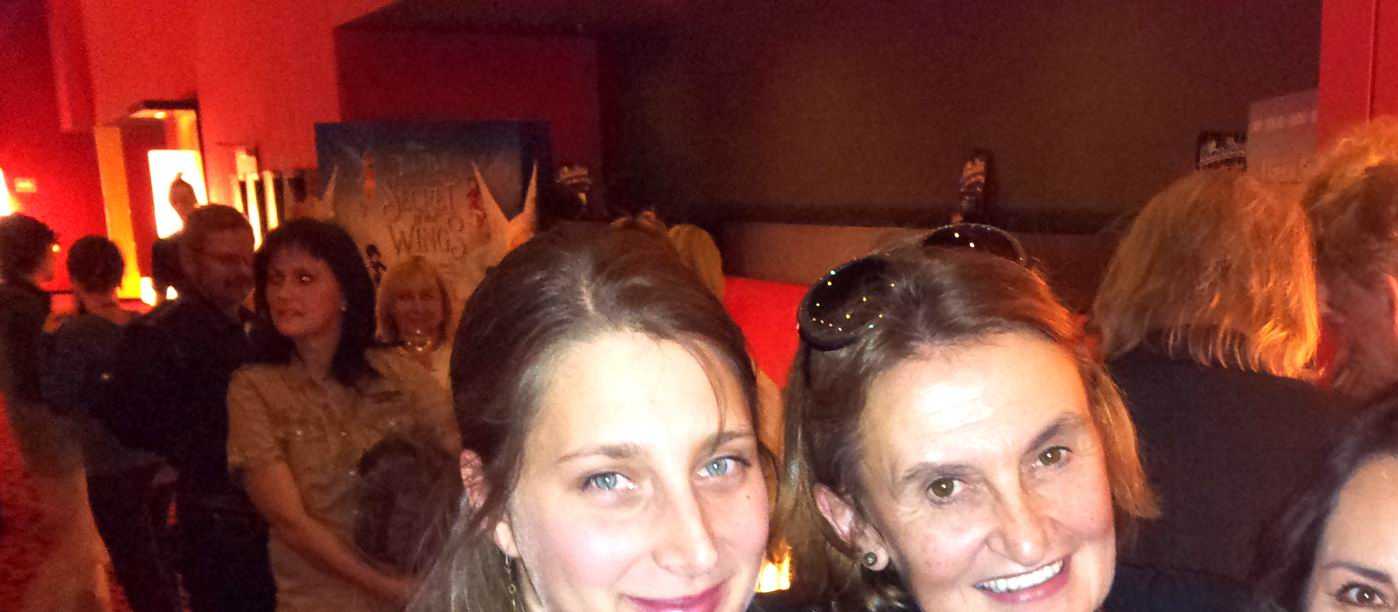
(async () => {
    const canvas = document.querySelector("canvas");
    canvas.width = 1398;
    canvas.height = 612;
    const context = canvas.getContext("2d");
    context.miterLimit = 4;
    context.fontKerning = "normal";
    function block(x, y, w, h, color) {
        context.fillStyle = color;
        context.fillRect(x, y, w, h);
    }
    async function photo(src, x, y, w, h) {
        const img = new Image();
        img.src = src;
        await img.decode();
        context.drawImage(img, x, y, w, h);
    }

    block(0, 0, 1398, 612, "rgb(255, 255, 255)");
    await photo("media/1.png", 0, 0, 1398, 612);
})();
